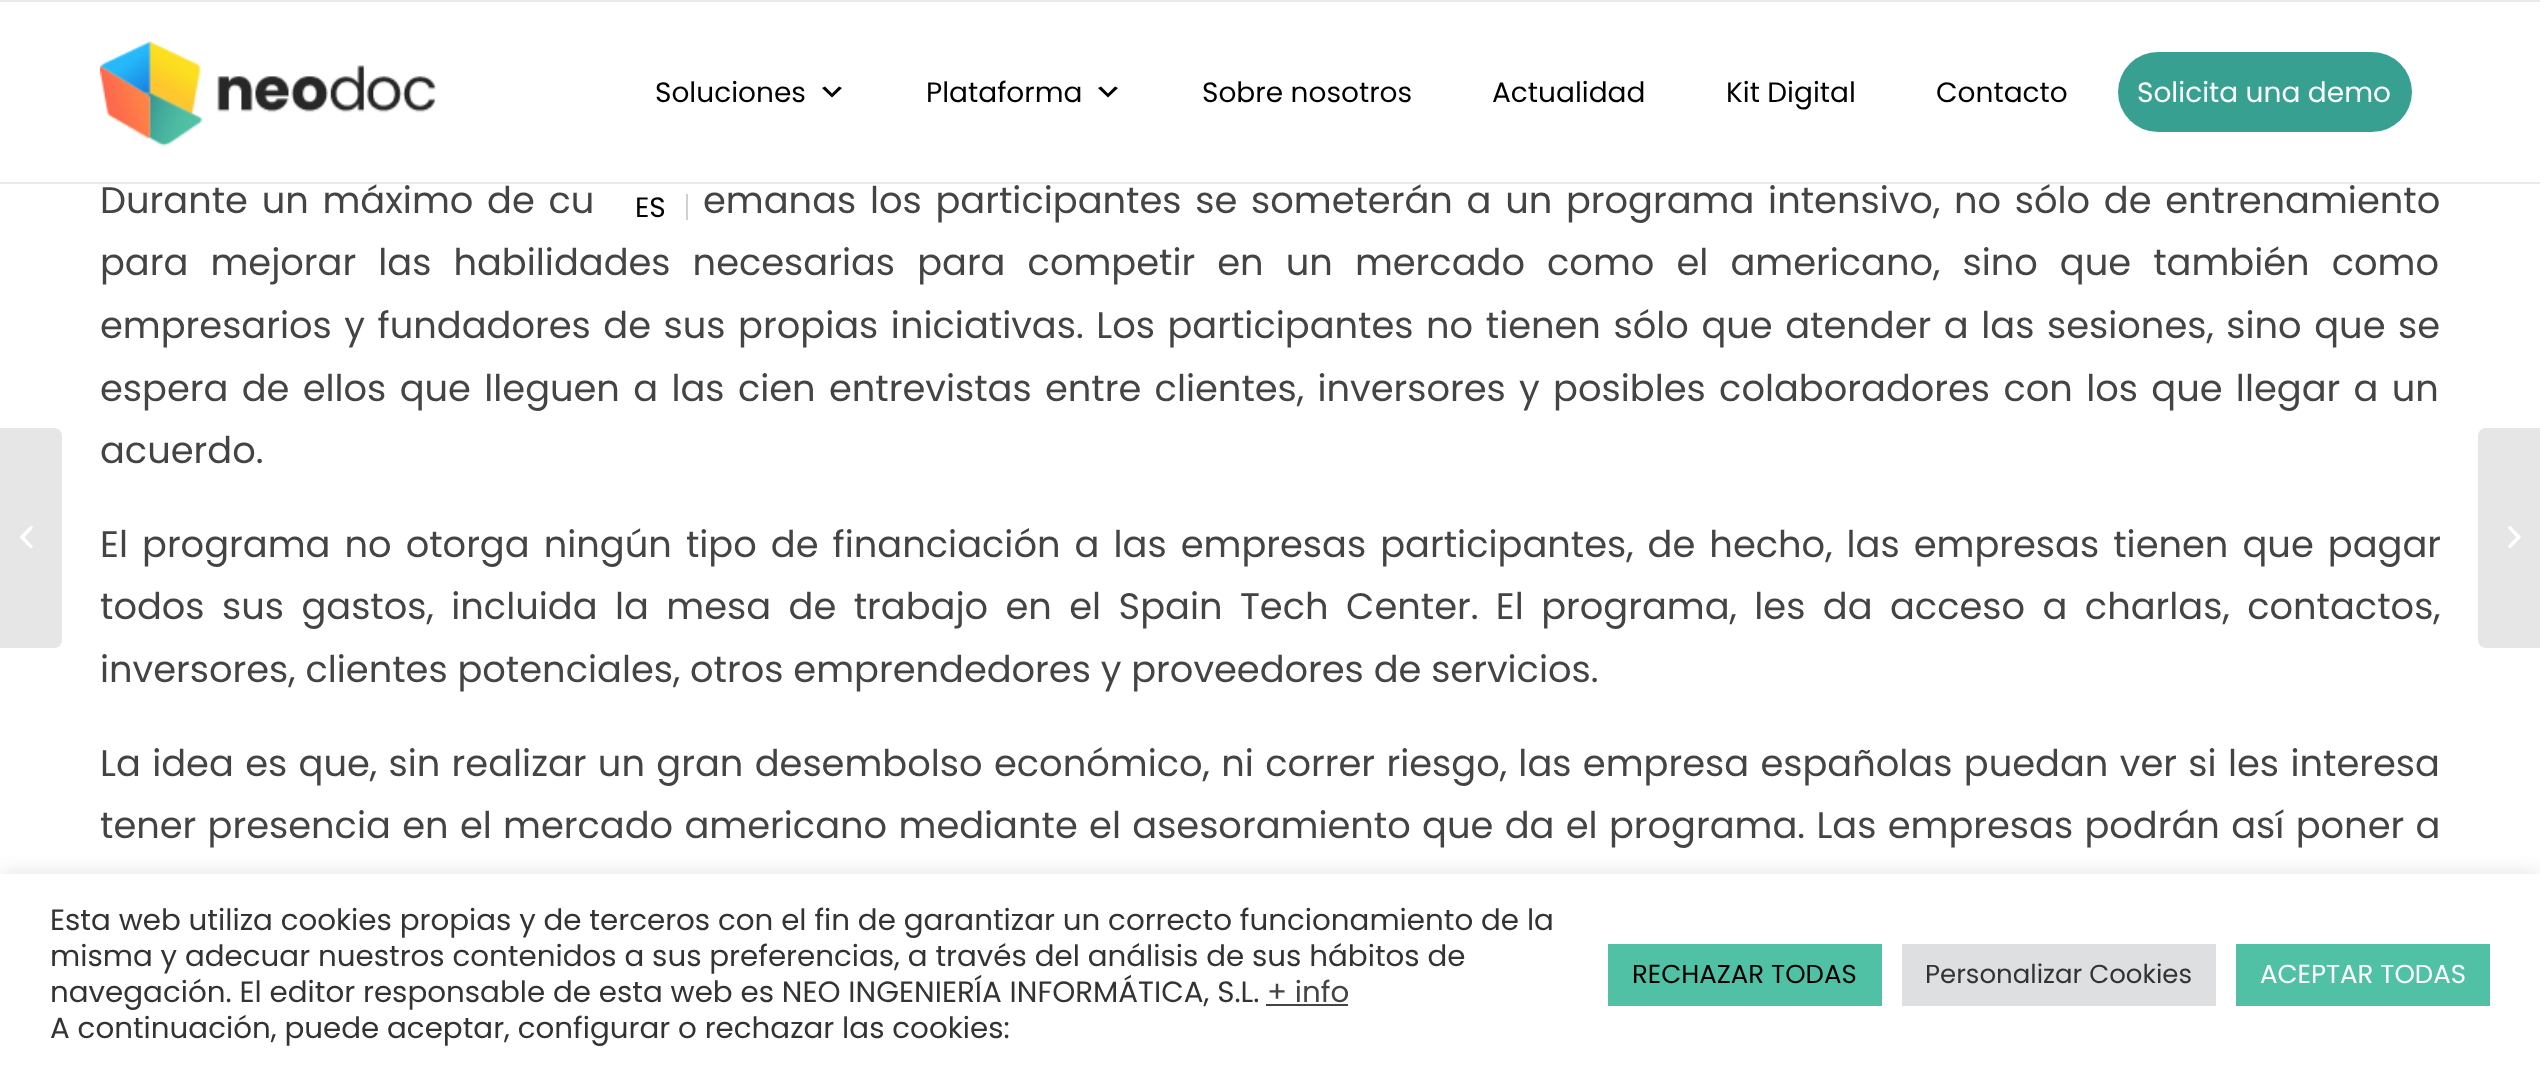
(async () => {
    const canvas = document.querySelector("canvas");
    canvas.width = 2540;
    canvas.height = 1074;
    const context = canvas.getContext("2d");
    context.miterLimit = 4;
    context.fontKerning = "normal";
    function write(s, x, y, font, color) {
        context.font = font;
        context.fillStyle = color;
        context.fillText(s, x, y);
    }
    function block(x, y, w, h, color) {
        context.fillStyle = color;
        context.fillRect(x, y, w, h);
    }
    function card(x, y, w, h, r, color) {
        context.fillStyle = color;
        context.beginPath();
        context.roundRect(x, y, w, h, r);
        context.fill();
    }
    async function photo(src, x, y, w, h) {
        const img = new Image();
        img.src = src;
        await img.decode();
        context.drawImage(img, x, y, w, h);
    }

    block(0, 0, 2540, 1074, "rgb(255, 255, 255)");
    context.fillStyle = "rgb(230, 230, 230)";
    context.beginPath();
    context.roundRect(0, 428, 62, 220, [0, 8, 8, 0]);
    context.fill();
    await photo("media/1.png", 20, 526, 13, 22);
    block(0, 0, 2540, 2, "rgb(235, 235, 235)");
    block(0, 182, 2540, 2, "rgb(235, 235, 235)");
    await photo("media/2.png", 100, 41, 336, 106);
    write("Soluciones", 655, 102, "28px Poppins", "rgb(0, 0, 0)");
    context.beginPath();
    context.moveTo(825, 86.5);
    context.lineTo(832, 93.5);
    context.lineTo(839, 86.5);
    context.lineTo(842, 88);
    context.lineTo(832, 97.5);
    context.lineTo(822, 88);
    context.closePath();
    context.fill();
    write("Plataforma", 926, 102, "28px Poppins", "rgb(0, 0, 0)");
    context.beginPath();
    context.moveTo(1101, 86.5);
    context.lineTo(1108, 93.5);
    context.lineTo(1115, 86.5);
    context.lineTo(1118, 88);
    context.lineTo(1108, 97.5);
    context.lineTo(1098, 88);
    context.closePath();
    context.fill();
    write("Sobre nosotros", 1202, 102, "28px Poppins", "rgb(0, 0, 0)");
    write("Actualidad", 1492, 102, "28px Poppins", "rgb(0, 0, 0)");
    write("Kit Digital", 1726, 102, "28px Poppins", "rgb(0, 0, 0)");
    write("Contacto", 1936, 102, "28px Poppins", "rgb(0, 0, 0)");
    card(2118, 52, 294, 80, 40, "rgb(55, 160, 145)");
    write("Solicita una demo", 2137, 102, "28px Poppins", "rgb(255, 255, 255)");
    block(686, 194, 2, 26, "rgb(208, 208, 208)");
    write("ES", 635, 217, "28px Poppins", "rgb(0, 0, 0)");
    context.wordSpacing = "3.9px";
    write("Durante un máximo de cu", 100, 213, "36.8px Poppins", "rgb(68, 68, 68)");
    write("emanas los participantes se someterán a un programa intensivo, no sólo de entrenamiento", 703, 213, "36.8px Poppins", "rgb(68, 68, 68)");
    context.wordSpacing = "12.25px";
    write("para mejorar las habilidades necesarias para competir en un mercado como el americano, sino que también como", 100, 275, "36.8px Poppins", "rgb(68, 68, 68)");
    context.wordSpacing = "2.75px";
    write("empresarios y fundadores de sus propias iniciativas. Los participantes no tienen sólo que atender a las sesiones, sino que se", 100, 338, "36.8px Poppins", "rgb(68, 68, 68)");
    context.wordSpacing = "3.5px";
    write("espera de ellos que lleguen a las cien entrevistas entre clientes, inversores y posibles colaboradores con los que llegar a un", 100, 401, "36.8px Poppins", "rgb(68, 68, 68)");
    context.wordSpacing = "0px";
    write("acuerdo.", 100, 463, "36.8px Poppins", "rgb(68, 68, 68)");
    context.wordSpacing = "4.25px";
    write("El programa no otorga ningún tipo de financiación a las empresas participantes, de hecho, las empresas tienen que pagar", 100, 557, "36.8px Poppins", "rgb(68, 68, 68)");
    context.wordSpacing = "7.6px";
    write("todos sus gastos, incluida la mesa de trabajo en el Spain Tech Center. El programa, les da acceso a charlas, contactos,", 100, 619, "36.8px Poppins", "rgb(68, 68, 68)");
    context.wordSpacing = "0px";
    write("inversores, clientes potenciales, otros emprendedores y proveedores de servicios.", 100, 682, "36.8px Poppins", "rgb(68, 68, 68)");
    context.wordSpacing = "1.55px";
    write("La idea es que, sin realizar un gran desembolso económico, ni correr riesgo, las empresa españolas puedan ver si les interesa", 100, 776, "36.8px Poppins", "rgb(68, 68, 68)");
    context.wordSpacing = "1.5px";
    write("tener presencia en el mercado americano mediante el asesoramiento que da el programa. Las empresas podrán así poner a", 100, 838, "36.8px Poppins", "rgb(68, 68, 68)");
    context.fillStyle = "rgb(230, 230, 230)";
    context.beginPath();
    context.roundRect(2478, 428, 62, 220, [8, 0, 0, 8]);
    context.fill();
    await photo("media/3.png", 2508, 526, 13, 23);
    context.fillStyle = "rgba(172, 171, 171, 0.3)";
    context.filter = "blur(10px)";
    context.beginPath();
    context.rect(0, 872, 2540, 200);
    context.fill();
    context.filter = "none";
    block(0, 874, 2540, 200, "rgb(255, 255, 255)");
    context.wordSpacing = "0px";
    write("Esta web utiliza cookies propias y de terceros con el fin de garantizar un correcto funcionamiento de la", 50, 930, "29.33px Poppins", "rgb(51, 51, 51)");
    write("misma y adecuar nuestros contenidos a sus preferencias, a través del análisis de sus hábitos de", 50, 966, "29.33px Poppins", "rgb(51, 51, 51)");
    write("navegación. El editor responsable de esta web es NEO INGENIERÍA INFORMÁTICA, S.L.", 50, 1002, "29.33px Poppins", "rgb(51, 51, 51)");
    write("+ info", 1267, 1002, "29.33px Poppins", "rgb(68, 68, 68)");
    block(1266, 1004, 82, 2, "rgb(68, 68, 68)");
    write("A continuación, puede aceptar, configurar o rechazar las cookies:", 50, 1038, "29.33px Poppins", "rgb(51, 51, 51)");
    block(1608, 944, 274, 62, "rgb(80, 193, 165)");
    write("RECHAZAR TODAS", 1632, 983, "26px Poppins", "rgb(0, 0, 0)");
    block(1902, 944, 314, 62, "rgb(222, 223, 224)");
    write("Personalizar Cookies", 1925, 983, "26px Poppins", "rgb(51, 51, 51)");
    block(2236, 944, 254, 62, "rgb(80, 193, 165)");
    write("ACEPTAR TODAS", 2260, 983, "26px Poppins", "rgb(255, 255, 255)");
})();
